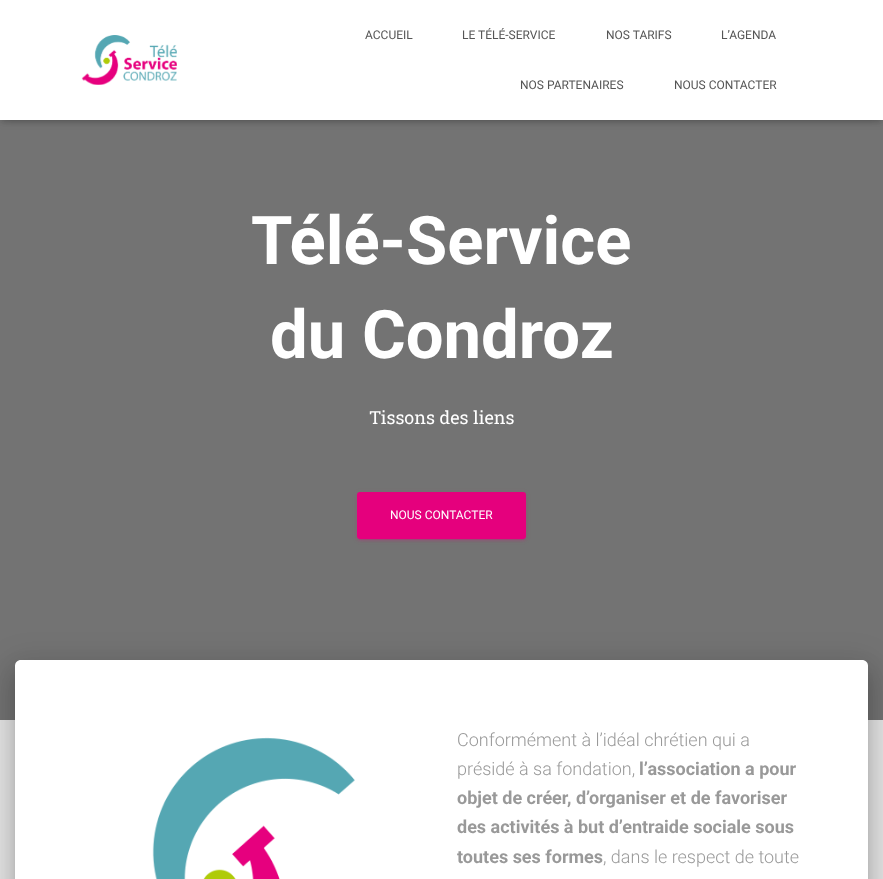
(async () => {
    const canvas = document.querySelector("canvas");
    canvas.width = 883;
    canvas.height = 879;
    const context = canvas.getContext("2d");
    context.miterLimit = 4;
    context.fontKerning = "normal";
    function write(s, x, y, font, color) {
        context.font = font;
        context.fillStyle = color;
        context.fillText(s, x, y);
    }
    function block(x, y, w, h, color) {
        context.fillStyle = color;
        context.fillRect(x, y, w, h);
    }
    function card(x, y, w, h, r, color) {
        context.fillStyle = color;
        context.beginPath();
        context.roundRect(x, y, w, h, r);
        context.fill();
    }
    async function photo(src, x, y, w, h) {
        const img = new Image();
        img.src = src;
        await img.decode();
        context.drawImage(img, x, y, w, h);
    }

    block(0, 0, 883, 879, "rgb(229, 229, 229)");
    block(0, 120, 883, 600, "rgb(115, 115, 115)");
    context.fillStyle = "rgba(0, 0, 0, 0.1)";
    context.filter = "blur(2.5px)";
    context.beginPath();
    context.rect(2, 6, 879, 116);
    context.fill();
    context.filter = "none";
    context.fillStyle = "rgba(0, 0, 0, 0.12)";
    context.filter = "blur(5px)";
    context.beginPath();
    context.rect(0, 1, 883, 120);
    context.fill();
    context.filter = "none";
    context.fillStyle = "rgba(0, 0, 0, 0.42)";
    context.filter = "blur(5px)";
    context.beginPath();
    context.rect(6, 7, 871, 108);
    context.fill();
    context.filter = "none";
    block(0, 0, 883, 120, "rgb(255, 255, 255)");
    await photo("media/1.png", 81, 35, 96, 50);
    write("ACCUEIL", 365, 39, "12px Roboto", "rgb(85, 85, 85)");
    write("LE TÉLÉ-SERVICE", 462, 39, "12px Roboto", "rgb(85, 85, 85)");
    write("NOS TARIFS", 606, 39, "12px Roboto", "rgb(85, 85, 85)");
    write("L’AGENDA", 721, 39, "12px Roboto", "rgb(85, 85, 85)");
    write("NOS PARTENAIRES", 520, 89, "12px Roboto", "rgb(85, 85, 85)");
    write("NOUS CONTACTER", 674, 89, "12px Roboto", "rgb(85, 85, 85)");
    write("Télé-Service", 251, 264, "bold 67px Roboto", "rgb(255, 255, 255)");
    write("du Condroz", 270, 358, "bold 67px Roboto", "rgb(255, 255, 255)");
    write("Tissons des liens", 369, 424, "18px Roboto Slab", "rgb(255, 255, 255)");
    context.fillStyle = "rgba(229, 0, 125, 0.12)";
    context.filter = "blur(2.5px)";
    context.beginPath();
    context.roundRect(357, 493, 169, 47, 3);
    context.fill();
    context.filter = "none";
    context.fillStyle = "rgba(229, 0, 125, 0.2)";
    context.filter = "blur(0.5px)";
    context.beginPath();
    context.roundRect(359, 497, 165, 43, 1);
    context.fill();
    context.filter = "none";
    context.fillStyle = "rgba(229, 0, 125, 0.14)";
    context.filter = "blur(1px)";
    context.beginPath();
    context.roundRect(357, 494, 169, 47, 3);
    context.fill();
    context.filter = "none";
    card(357, 492, 169, 47, 3, "rgb(229, 0, 125)");
    write("NOUS CONTACTER", 390, 519, "12px Roboto", "rgb(255, 255, 255)");
    context.fillStyle = "rgba(0, 0, 0, 0.2)";
    context.filter = "blur(5px)";
    context.beginPath();
    context.roundRect(20, 673, 843, 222, 1);
    context.fill();
    context.filter = "none";
    context.fillStyle = "rgba(0, 0, 0, 0.12)";
    context.filter = "blur(15px)";
    context.beginPath();
    context.roundRect(10, 661, 863, 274, 11);
    context.fill();
    context.filter = "none";
    context.fillStyle = "rgba(0, 0, 0, 0.14)";
    context.filter = "blur(12px)";
    context.beginPath();
    context.roundRect(13, 674, 857, 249, 8);
    context.fill();
    context.filter = "none";
    context.fillStyle = "rgb(255, 255, 255)";
    context.beginPath();
    context.moveTo(21, 660);
    context.lineTo(862, 660);
    context.bezierCurveTo(865.5, 660, 868, 662.5, 868, 666);
    context.lineTo(868, 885);
    context.lineTo(15, 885);
    context.lineTo(15, 666);
    context.bezierCurveTo(15, 662.5, 17.5, 660, 21, 660);
    context.closePath();
    context.fill();
    await photo("media/2.png", 152, 737, 203, 142);
    write("Conformément à l’idéal chrétien qui a", 457, 746, "300 18px Roboto", "rgb(153, 153, 153)");
    write("présidé à sa fondation,", 457, 775, "300 18px Roboto", "rgb(153, 153, 153)");
    write("l’association a pour", 639, 775, "bold 18px Roboto", "rgb(153, 153, 153)");
    write("objet de créer, d’organiser et de favoriser", 457, 804, "bold 18px Roboto", "rgb(153, 153, 153)");
    write("des activités à but d’entraide sociale sous", 457, 833, "bold 18px Roboto", "rgb(153, 153, 153)");
    write("toutes ses formes", 457, 863, "bold 18px Roboto", "rgb(153, 153, 153)");
    write(", dans le respect de toute", 603, 863, "300 18px Roboto", "rgb(153, 153, 153)");
})();
